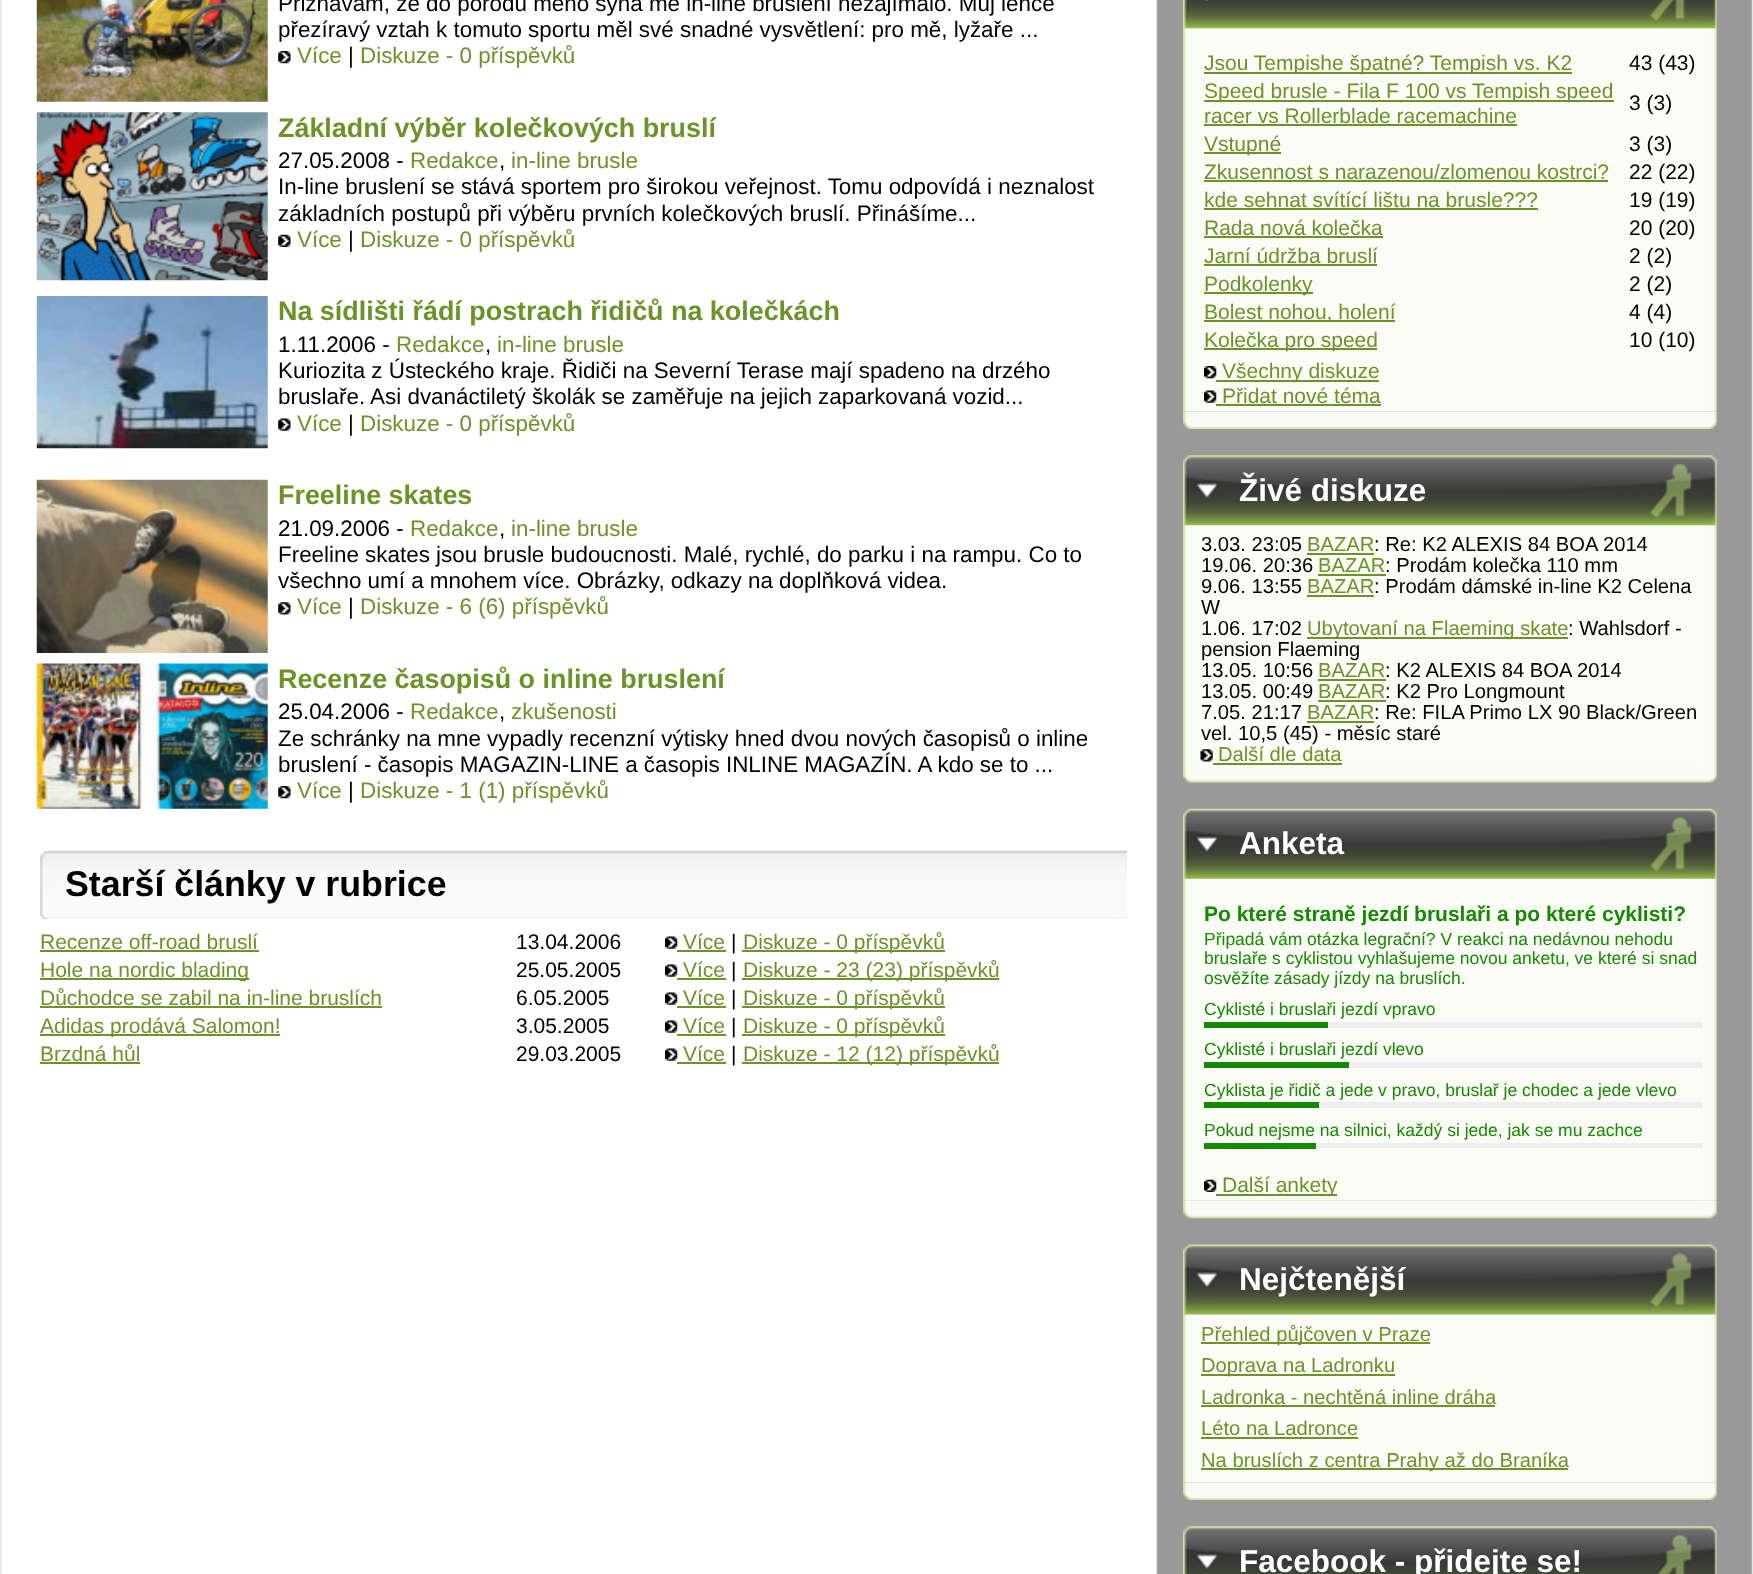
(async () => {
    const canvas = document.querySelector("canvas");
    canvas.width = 1753;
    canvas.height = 1574;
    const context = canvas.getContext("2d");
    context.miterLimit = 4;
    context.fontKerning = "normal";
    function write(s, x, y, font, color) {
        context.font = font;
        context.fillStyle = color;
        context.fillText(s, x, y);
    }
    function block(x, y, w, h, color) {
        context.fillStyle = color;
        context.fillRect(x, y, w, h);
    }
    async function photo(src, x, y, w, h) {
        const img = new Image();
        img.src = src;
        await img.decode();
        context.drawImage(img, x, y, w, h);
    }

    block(0, 0, 1753, 1574, "rgb(230, 230, 230)");
    await photo("media/1.png", 1, 0, 1751, 1574);
    await photo("media/2.png", 36, 0, 232, 102);
    write("Přiznávám, že do porodu mého syna mě in-line bruslení nezajímalo. Můj lehce", 278, 11, "22.4px Liberation Sans", "rgb(0, 0, 0)");
    write("přezíravý vztah k tomuto sportu měl své snadné vysvětlení: pro mě, lyžaře ...", 278, 37, "22.4px Liberation Sans", "rgb(0, 0, 0)");
    await photo("media/3.png", 278, 51, 13, 13);
    write("Více", 297, 63, "22.4px Liberation Sans", "rgb(107, 147, 40)");
    write("|", 348, 63, "22.4px Liberation Sans", "rgb(0, 0, 0)");
    write("Diskuze - 0 příspěvků", 360, 63, "22.4px Liberation Sans", "rgb(107, 147, 40)");
    await photo("media/4.png", 36, 112, 232, 169);
    write("Základní výběr kolečkových bruslí", 278, 137, "bold 26.9px Liberation Sans", "rgb(107, 147, 40)");
    write("27.05.2008 -", 278, 168, "22.4px Liberation Sans", "rgb(0, 0, 0)");
    write("Redakce", 410, 168, "22.4px Liberation Sans", "rgb(107, 147, 40)");
    write(",", 499, 168, "22.4px Liberation Sans", "rgb(0, 0, 0)");
    write("in-line brusle", 511, 168, "22.4px Liberation Sans", "rgb(107, 147, 40)");
    write("In-line bruslení se stává sportem pro širokou veřejnost. Tomu odpovídá i neznalost", 278, 194, "22.4px Liberation Sans", "rgb(0, 0, 0)");
    write("základních postupů při výběru prvních kolečkových bruslí. Přinášíme...", 278, 221, "22.4px Liberation Sans", "rgb(0, 0, 0)");
    await photo("media/5.png", 278, 234, 13, 13);
    write("Více", 297, 247, "22.4px Liberation Sans", "rgb(107, 147, 40)");
    write("|", 348, 247, "22.4px Liberation Sans", "rgb(0, 0, 0)");
    write("Diskuze - 0 příspěvků", 360, 247, "22.4px Liberation Sans", "rgb(107, 147, 40)");
    await photo("media/6.png", 36, 296, 232, 153);
    write("Na sídlišti řádí postrach řidičů na kolečkách", 278, 320, "bold 26.9px Liberation Sans", "rgb(107, 147, 40)");
    write("1.11.2006 -", 278, 352, "22.4px Liberation Sans", "rgb(0, 0, 0)");
    write("Redakce", 396, 352, "22.4px Liberation Sans", "rgb(107, 147, 40)");
    write(",", 485, 352, "22.4px Liberation Sans", "rgb(0, 0, 0)");
    write("in-line brusle", 497, 352, "22.4px Liberation Sans", "rgb(107, 147, 40)");
    write("Kuriozita z Ústeckého kraje. Řidiči na Severní Terase mají spadeno na drzého", 278, 378, "22.4px Liberation Sans", "rgb(0, 0, 0)");
    write("bruslaře. Asi dvanáctiletý školák se zaměřuje na jejich zaparkovaná vozid...", 278, 404, "22.4px Liberation Sans", "rgb(0, 0, 0)");
    await photo("media/7.png", 278, 418, 13, 13);
    write("Více", 297, 431, "22.4px Liberation Sans", "rgb(107, 147, 40)");
    write("|", 348, 431, "22.4px Liberation Sans", "rgb(0, 0, 0)");
    write("Diskuze - 0 příspěvků", 360, 431, "22.4px Liberation Sans", "rgb(107, 147, 40)");
    await photo("media/8.png", 36, 479, 232, 174);
    write("Freeline skates", 278, 504, "bold 26.9px Liberation Sans", "rgb(107, 147, 40)");
    write("21.09.2006 -", 278, 536, "22.4px Liberation Sans", "rgb(0, 0, 0)");
    write("Redakce", 410, 536, "22.4px Liberation Sans", "rgb(107, 147, 40)");
    write(",", 499, 536, "22.4px Liberation Sans", "rgb(0, 0, 0)");
    write("in-line brusle", 511, 536, "22.4px Liberation Sans", "rgb(107, 147, 40)");
    write("Freeline skates jsou brusle budoucnosti. Malé, rychlé, do parku i na rampu. Co to", 278, 562, "22.4px Liberation Sans", "rgb(0, 0, 0)");
    write("všechno umí a mnohem více. Obrázky, odkazy na doplňková videa.", 278, 588, "22.4px Liberation Sans", "rgb(0, 0, 0)");
    await photo("media/9.png", 278, 602, 13, 13);
    write("Více", 297, 614, "22.4px Liberation Sans", "rgb(107, 147, 40)");
    write("|", 348, 614, "22.4px Liberation Sans", "rgb(0, 0, 0)");
    write("Diskuze - 6 (6) příspěvků", 360, 614, "22.4px Liberation Sans", "rgb(107, 147, 40)");
    await photo("media/10.png", 36, 663, 232, 146);
    write("Recenze časopisů o inline bruslení", 278, 688, "bold 26.9px Liberation Sans", "rgb(107, 147, 40)");
    write("25.04.2006 -", 278, 719, "22.4px Liberation Sans", "rgb(0, 0, 0)");
    write("Redakce", 410, 719, "22.4px Liberation Sans", "rgb(107, 147, 40)");
    write(",", 499, 719, "22.4px Liberation Sans", "rgb(0, 0, 0)");
    write("zkušenosti", 511, 719, "22.4px Liberation Sans", "rgb(107, 147, 40)");
    write("Ze schránky na mne vypadly recenzní výtisky hned dvou nových časopisů o inline", 278, 746, "22.4px Liberation Sans", "rgb(0, 0, 0)");
    write("bruslení - časopis MAGAZIN-LINE a časopis INLINE MAGAZÍN. A kdo se to ...", 278, 772, "22.4px Liberation Sans", "rgb(0, 0, 0)");
    await photo("media/3.png", 278, 786, 13, 13);
    write("Více", 297, 798, "22.4px Liberation Sans", "rgb(107, 147, 40)");
    write("|", 348, 798, "22.4px Liberation Sans", "rgb(0, 0, 0)");
    write("Diskuze - 1 (1) příspěvků", 360, 798, "22.4px Liberation Sans", "rgb(107, 147, 40)");
    await photo("media/11.png", 40, 850, 1087, 69);
    write("Starší články v rubrice", 65, 896, "bold 35.75px Liberation Sans", "rgb(0, 0, 0)");
    write("Recenze off-road bruslí", 40, 949, "21px Liberation Sans", "rgb(107, 147, 40)");
    block(40, 950, 219, 2, "rgb(107, 147, 40)");
    write("13.04.2006", 516, 949, "21px Liberation Sans", "rgb(0, 0, 0)");
    await photo("media/12.png", 665, 936, 13, 13);
    write("Více", 683, 949, "21px Liberation Sans", "rgb(107, 147, 40)");
    block(677, 950, 49, 2, "rgb(107, 147, 40)");
    write("|", 731, 949, "21px Liberation Sans", "rgb(0, 0, 0)");
    block(742, 950, 203, 2, "rgb(107, 147, 40)");
    write("Diskuze - 0 příspěvků", 743, 949, "21px Liberation Sans", "rgb(107, 147, 40)");
    block(40, 978, 209, 2, "rgb(107, 147, 40)");
    write("Hole na nordic blading", 40, 977, "21px Liberation Sans", "rgb(107, 147, 40)");
    write("25.05.2005", 516, 977, "21px Liberation Sans", "rgb(0, 0, 0)");
    await photo("media/13.png", 665, 964, 13, 13);
    write("Více", 683, 977, "21px Liberation Sans", "rgb(107, 147, 40)");
    block(677, 978, 49, 2, "rgb(107, 147, 40)");
    write("|", 731, 977, "21px Liberation Sans", "rgb(0, 0, 0)");
    block(742, 978, 257, 2, "rgb(107, 147, 40)");
    write("Diskuze - 23 (23) příspěvků", 743, 977, "21px Liberation Sans", "rgb(107, 147, 40)");
    write("Důchodce se zabil na in-line bruslích", 40, 1005, "21px Liberation Sans", "rgb(107, 147, 40)");
    block(40, 1006, 342, 2, "rgb(107, 147, 40)");
    write("6.05.2005", 516, 1005, "21px Liberation Sans", "rgb(0, 0, 0)");
    await photo("media/12.png", 665, 992, 13, 13);
    write("Více", 683, 1005, "21px Liberation Sans", "rgb(107, 147, 40)");
    block(677, 1006, 49, 2, "rgb(107, 147, 40)");
    write("|", 731, 1005, "21px Liberation Sans", "rgb(0, 0, 0)");
    block(742, 1006, 203, 2, "rgb(107, 147, 40)");
    write("Diskuze - 0 příspěvků", 743, 1005, "21px Liberation Sans", "rgb(107, 147, 40)");
    block(40, 1034, 240, 2, "rgb(107, 147, 40)");
    write("Adidas prodává Salomon!", 40, 1033, "21px Liberation Sans", "rgb(107, 147, 40)");
    write("3.05.2005", 516, 1033, "21px Liberation Sans", "rgb(0, 0, 0)");
    await photo("media/12.png", 665, 1020, 13, 13);
    write("Více", 683, 1033, "21px Liberation Sans", "rgb(107, 147, 40)");
    block(677, 1034, 49, 2, "rgb(107, 147, 40)");
    write("|", 731, 1033, "21px Liberation Sans", "rgb(0, 0, 0)");
    block(742, 1034, 203, 2, "rgb(107, 147, 40)");
    write("Diskuze - 0 příspěvků", 743, 1033, "21px Liberation Sans", "rgb(107, 147, 40)");
    write("Brzdná hůl", 40, 1061, "21px Liberation Sans", "rgb(107, 147, 40)");
    block(40, 1062, 100, 2, "rgb(107, 147, 40)");
    write("29.03.2005", 516, 1061, "21px Liberation Sans", "rgb(0, 0, 0)");
    await photo("media/12.png", 665, 1048, 13, 13);
    write("Více", 683, 1061, "21px Liberation Sans", "rgb(107, 147, 40)");
    block(677, 1062, 49, 2, "rgb(107, 147, 40)");
    write("|", 731, 1061, "21px Liberation Sans", "rgb(0, 0, 0)");
    block(742, 1062, 257, 2, "rgb(107, 147, 40)");
    write("Diskuze - 12 (12) příspěvků", 743, 1061, "21px Liberation Sans", "rgb(107, 147, 40)");
    await photo("media/14.png", 1183, 0, 534, 29);
    await photo("media/15.png", 1183, 28, 534, 384);
    block(1204, 72, 368, 2, "rgb(107, 147, 40)");
    write("Jsou Tempishe špatné? Tempish vs. K2", 1204, 70, "21px Liberation Sans", "rgb(107, 147, 40)");
    write("43 (43)", 1629, 70, "21px Liberation Sans", "rgb(0, 0, 0)");
    block(1204, 100, 410, 2, "rgb(107, 147, 40)");
    write("Speed brusle - Fila F 100 vs Tempish speed", 1204, 98, "21px Liberation Sans", "rgb(107, 147, 40)");
    write("racer vs Rollerblade racemachine", 1204, 123, "21px Liberation Sans", "rgb(107, 147, 40)");
    block(1204, 124, 313, 2, "rgb(107, 147, 40)");
    write("3 (3)", 1629, 110, "21px Liberation Sans", "rgb(0, 0, 0)");
    block(1204, 152, 77, 2, "rgb(107, 147, 40)");
    write("Vstupné", 1204, 151, "21px Liberation Sans", "rgb(107, 147, 40)");
    write("3 (3)", 1629, 151, "21px Liberation Sans", "rgb(0, 0, 0)");
    write("Zkusennost s narazenou/zlomenou kostrci?", 1204, 179, "21px Liberation Sans", "rgb(107, 147, 40)");
    block(1204, 180, 404, 2, "rgb(107, 147, 40)");
    write("22 (22)", 1629, 179, "21px Liberation Sans", "rgb(0, 0, 0)");
    write("kde sehnat svítící lištu na brusle???", 1204, 207, "21px Liberation Sans", "rgb(107, 147, 40)");
    block(1204, 208, 334, 2, "rgb(107, 147, 40)");
    write("19 (19)", 1629, 207, "21px Liberation Sans", "rgb(0, 0, 0)");
    write("Rada nová kolečka", 1204, 235, "21px Liberation Sans", "rgb(107, 147, 40)");
    block(1204, 236, 179, 2, "rgb(107, 147, 40)");
    write("20 (20)", 1629, 235, "21px Liberation Sans", "rgb(0, 0, 0)");
    write("Jarní údržba bruslí", 1204, 263, "21px Liberation Sans", "rgb(107, 147, 40)");
    block(1204, 264, 173, 2, "rgb(107, 147, 40)");
    write("2 (2)", 1629, 263, "21px Liberation Sans", "rgb(0, 0, 0)");
    block(1204, 292, 109, 2, "rgb(107, 147, 40)");
    write("Podkolenky", 1204, 291, "21px Liberation Sans", "rgb(107, 147, 40)");
    write("2 (2)", 1629, 291, "21px Liberation Sans", "rgb(0, 0, 0)");
    block(1204, 320, 191, 2, "rgb(107, 147, 40)");
    write("Bolest nohou, holení", 1204, 319, "21px Liberation Sans", "rgb(107, 147, 40)");
    write("4 (4)", 1629, 319, "21px Liberation Sans", "rgb(0, 0, 0)");
    block(1204, 348, 173, 2, "rgb(107, 147, 40)");
    write("Kolečka pro speed", 1204, 347, "21px Liberation Sans", "rgb(107, 147, 40)");
    write("10 (10)", 1629, 347, "21px Liberation Sans", "rgb(0, 0, 0)");
    await photo("media/16.png", 1204, 366, 13, 13);
    block(1216, 380, 163, 2, "rgb(107, 147, 40)");
    write("Všechny diskuze", 1222, 378, "21px Liberation Sans", "rgb(107, 147, 40)");
    await photo("media/17.png", 1204, 390, 13, 13);
    write("Přidat nové téma", 1222, 403, "21px Liberation Sans", "rgb(107, 147, 40)");
    block(1216, 404, 165, 2, "rgb(107, 147, 40)");
    await photo("media/18.png", 1183, 411, 534, 18);
    await photo("media/19.png", 1183, 455, 534, 71);
    write("Živé diskuze", 1239, 501, "bold 31.5px Liberation Sans", "rgb(255, 255, 255)");
    await photo("media/20.png", 1183, 525, 534, 240);
    write("3.03. 23:05", 1201, 551, "20.2px Liberation Sans", "rgb(0, 0, 0)");
    write("BAZAR", 1307, 551, "20.2px Liberation Sans", "rgb(107, 147, 40)");
    block(1307, 553, 67, 2, "rgb(107, 147, 40)");
    write(": Re: K2 ALEXIS 84 BOA 2014", 1374, 551, "20.2px Liberation Sans", "rgb(0, 0, 0)");
    write("19.06. 20:36", 1201, 572, "20.2px Liberation Sans", "rgb(0, 0, 0)");
    write("BAZAR", 1318, 572, "20.2px Liberation Sans", "rgb(107, 147, 40)");
    block(1318, 574, 68, 2, "rgb(107, 147, 40)");
    write(": Prodám kolečka 110 mm", 1385, 572, "20.2px Liberation Sans", "rgb(0, 0, 0)");
    write("9.06. 13:55", 1201, 593, "20.2px Liberation Sans", "rgb(0, 0, 0)");
    write("BAZAR", 1307, 593, "20.2px Liberation Sans", "rgb(107, 147, 40)");
    block(1307, 595, 67, 2, "rgb(107, 147, 40)");
    write(": Prodám dámské in-line K2 Celena", 1374, 593, "20.2px Liberation Sans", "rgb(0, 0, 0)");
    write("W", 1201, 614, "20.2px Liberation Sans", "rgb(0, 0, 0)");
    write("1.06. 17:02", 1201, 635, "20.2px Liberation Sans", "rgb(0, 0, 0)");
    block(1307, 637, 261, 2, "rgb(107, 147, 40)");
    write("Ubytovaní na Flaeming skate", 1307, 635, "20.2px Liberation Sans", "rgb(107, 147, 40)");
    write(": Wahlsdorf -", 1568, 635, "20.2px Liberation Sans", "rgb(0, 0, 0)");
    write("pension Flaeming", 1201, 656, "20.2px Liberation Sans", "rgb(0, 0, 0)");
    write("13.05. 10:56", 1201, 677, "20.2px Liberation Sans", "rgb(0, 0, 0)");
    write("BAZAR", 1318, 677, "20.2px Liberation Sans", "rgb(107, 147, 40)");
    block(1318, 679, 68, 2, "rgb(107, 147, 40)");
    write(": K2 ALEXIS 84 BOA 2014", 1385, 677, "20.2px Liberation Sans", "rgb(0, 0, 0)");
    write("13.05. 00:49", 1201, 698, "20.2px Liberation Sans", "rgb(0, 0, 0)");
    write("BAZAR", 1318, 698, "20.2px Liberation Sans", "rgb(107, 147, 40)");
    write(": K2 Pro Longmount", 1385, 698, "20.2px Liberation Sans", "rgb(0, 0, 0)");
    block(1318, 700, 68, 2, "rgb(107, 147, 40)");
    write("7.05. 21:17", 1201, 719, "20.2px Liberation Sans", "rgb(0, 0, 0)");
    write("BAZAR", 1307, 719, "20.2px Liberation Sans", "rgb(107, 147, 40)");
    block(1307, 721, 67, 2, "rgb(107, 147, 40)");
    write(": Re: FILA Primo LX 90 Black/Green", 1374, 719, "20.2px Liberation Sans", "rgb(0, 0, 0)");
    write("vel. 10,5 (45) - měsíc staré", 1201, 740, "20.2px Liberation Sans", "rgb(0, 0, 0)");
    await photo("media/21.png", 1200, 749, 13, 13);
    write("Další dle data", 1218, 761, "20.2px Liberation Sans", "rgb(107, 147, 40)");
    block(1213, 763, 129, 2, "rgb(107, 147, 40)");
    await photo("media/22.png", 1183, 765, 534, 18);
    await photo("media/23.png", 1183, 808, 534, 71);
    write("Anketa", 1239, 854, "bold 31.5px Liberation Sans", "rgb(255, 255, 255)");
    await photo("media/24.png", 1183, 878, 534, 323);
    write("Po které straně jezdí bruslaři a po které cyklisti?", 1204, 921, "bold 21px Liberation Sans", "rgb(21, 137, 1)");
    write("Připadá vám otázka legrační? V reakci na nedávnou nehodu", 1204, 945, "17.5px Liberation Sans", "rgb(21, 137, 1)");
    write("bruslaře s cyklistou vyhlašujeme novou anketu, ve které si snad", 1204, 964, "17.5px Liberation Sans", "rgb(21, 137, 1)");
    write("osvěžíte zásady jízdy na bruslích.", 1204, 984, "17.5px Liberation Sans", "rgb(21, 137, 1)");
    write("Cyklisté i bruslaři jezdí vpravo", 1204, 1015, "17.5px Liberation Sans", "rgb(21, 137, 1)");
    block(1204, 1022, 125, 6, "rgb(20, 138, 4)");
    block(1328, 1022, 375, 6, "rgb(238, 238, 238)");
    write("Cyklisté i bruslaři jezdí vlevo", 1204, 1055, "17.5px Liberation Sans", "rgb(21, 137, 1)");
    block(1204, 1062, 146, 6, "rgb(20, 138, 4)");
    block(1349, 1062, 354, 6, "rgb(238, 238, 238)");
    write("Cyklista je řidič a jede v pravo, bruslař je chodec a jede vlevo", 1204, 1096, "17.5px Liberation Sans", "rgb(21, 137, 1)");
    block(1204, 1102, 116, 6, "rgb(20, 138, 4)");
    block(1319, 1102, 384, 6, "rgb(238, 238, 238)");
    write("Pokud nejsme na silnici, každý si jede, jak se mu zachce", 1204, 1136, "17.5px Liberation Sans", "rgb(21, 137, 1)");
    block(1204, 1143, 112, 6, "rgb(20, 138, 4)");
    block(1316, 1143, 387, 5, "rgb(238, 238, 238)");
    await photo("media/25.png", 1204, 1179, 13, 13);
    block(1216, 1194, 121, 2, "rgb(107, 147, 40)");
    write("Další ankety", 1222, 1192, "21px Liberation Sans", "rgb(107, 147, 40)");
    await photo("media/26.png", 1183, 1200, 534, 19);
    await photo("media/27.png", 1183, 1244, 534, 71);
    write("Nejčtenější", 1239, 1290, "bold 31.5px Liberation Sans", "rgb(255, 255, 255)");
    await photo("media/28.png", 1183, 1314, 534, 169);
    block(1201, 1342, 229, 2, "rgb(107, 147, 40)");
    write("Přehled půjčoven v Praze", 1201, 1341, "20.2px Liberation Sans", "rgb(107, 147, 40)");
    block(1201, 1374, 194, 2, "rgb(107, 147, 40)");
    write("Doprava na Ladronku", 1201, 1372, "20.2px Liberation Sans", "rgb(107, 147, 40)");
    write("Ladronka - nechtěná inline dráha", 1201, 1404, "20.2px Liberation Sans", "rgb(107, 147, 40)");
    block(1201, 1405, 294, 2, "rgb(107, 147, 40)");
    write("Léto na Ladronce", 1201, 1435, "20.2px Liberation Sans", "rgb(107, 147, 40)");
    block(1201, 1437, 157, 2, "rgb(107, 147, 40)");
    block(1201, 1468, 367, 2, "rgb(107, 147, 40)");
    write("Na bruslích z centra Prahy až do Braníka", 1201, 1467, "20.2px Liberation Sans", "rgb(107, 147, 40)");
    await photo("media/18.png", 1183, 1482, 534, 18);
    await photo("media/29.png", 1183, 1526, 534, 48);
    write("Facebook - přidejte se!", 1239, 1572, "bold 31.5px Liberation Sans", "rgb(255, 255, 255)");
})();
